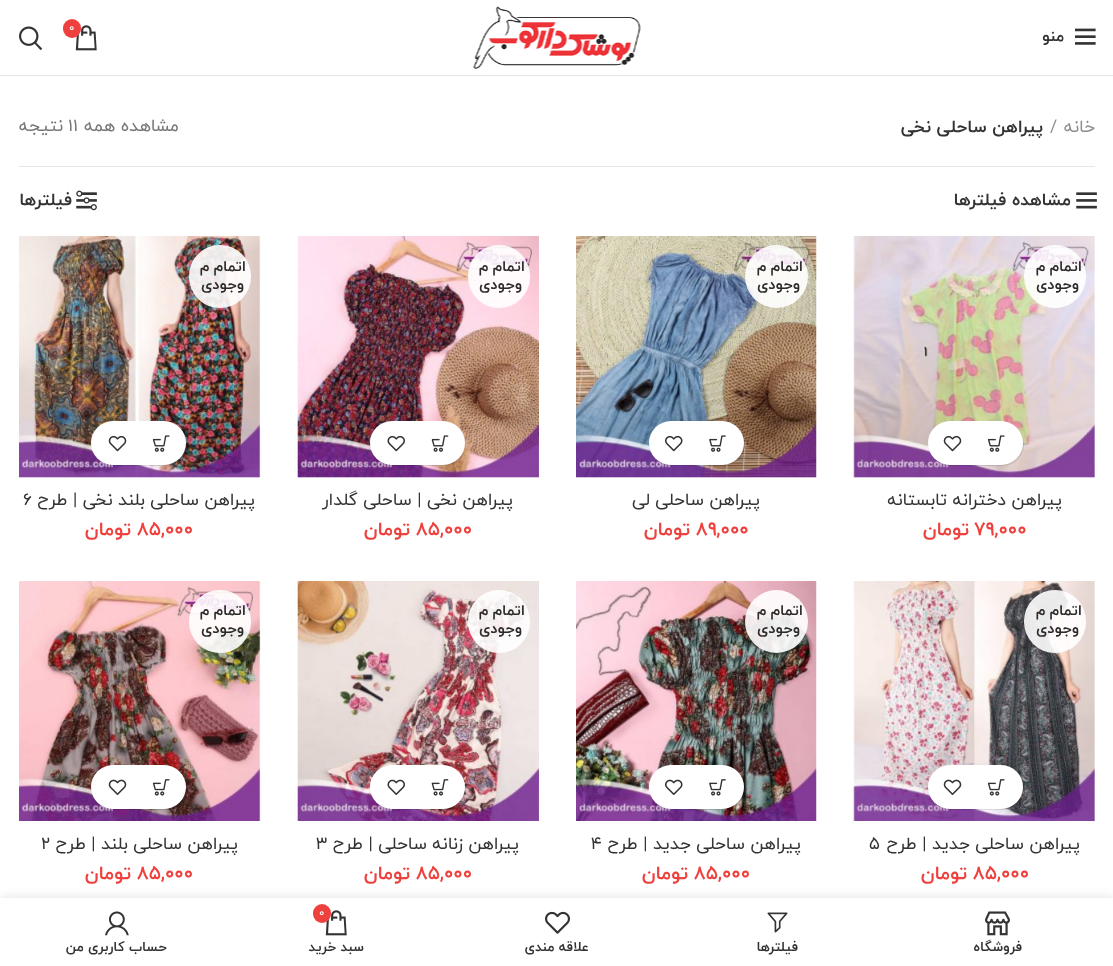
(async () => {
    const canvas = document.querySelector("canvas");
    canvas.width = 1113;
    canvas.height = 966;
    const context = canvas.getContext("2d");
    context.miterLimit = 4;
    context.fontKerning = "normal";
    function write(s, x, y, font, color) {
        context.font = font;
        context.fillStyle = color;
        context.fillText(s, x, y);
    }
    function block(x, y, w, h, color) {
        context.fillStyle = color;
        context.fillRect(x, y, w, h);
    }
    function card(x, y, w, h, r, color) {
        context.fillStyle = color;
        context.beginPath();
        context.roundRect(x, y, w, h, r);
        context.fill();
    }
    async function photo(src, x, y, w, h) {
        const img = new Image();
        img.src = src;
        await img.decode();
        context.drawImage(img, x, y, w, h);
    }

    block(0, 0, 1113, 966, "rgb(255, 255, 255)");
    block(0, 75, 1113, 1, "rgb(230, 230, 230)");
    await photo("media/1.png", 473, 6, 168, 63);
    await photo("media/2.png", 75, 25, 22, 26);
    card(63, 19, 18, 19, 9, "rgb(238, 65, 61)");
    write("0", 69, 31, "11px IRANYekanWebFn", "rgb(255, 255, 255)");
    await photo("media/3.png", 19, 26, 24, 25);
    await photo("media/4.png", 1075, 28, 21, 17);
    context.direction = "rtl";
    write("منو", 1064, 41, "bold 16px IRANYekanWebFn", "rgb(51, 51, 51)");
    block(19, 166, 1076, 1, "rgb(230, 230, 230)");
    write("خانه", 1095, 132, "17.5px IRANYekanWebFn", "rgb(142, 142, 142)");
    context.direction = "ltr";
    write("/", 1050, 132, "17.5px IRANYekanWebFn", "rgb(142, 142, 142)");
    context.direction = "rtl";
    write("پیراهن ساحلی نخی", 1043, 132, "bold 17.5px IRANYekanWebFn", "rgb(51, 51, 51)");
    write("مشاهده همه", 179, 131, "17.5px IRANYekanWebFn", "rgb(119, 119, 119)");
    context.direction = "ltr";
    write("11", 68, 131, "17.5px IRANYekanWebFn", "rgb(119, 119, 119)");
    context.direction = "rtl";
    write("نتیجه", 63, 131, "17.5px IRANYekanWebFn", "rgb(119, 119, 119)");
    await photo("media/5.png", 1076, 192, 21, 17);
    write("مشاهده فیلترها", 1071, 205, "bold 17.5px IRANYekanWebFn", "rgb(51, 51, 51)");
    await photo("media/6.png", 76, 190, 21, 21);
    write("فیلترها", 72, 205, "bold 17.5px IRANYekanWebFn", "rgb(51, 51, 51)");
    await photo("media/7.png", 853, 236, 242, 242);
    card(1024, 245, 62, 63, 31, "rgba(255, 255, 255, 0.9)");
    context.letterSpacing = "0.5px";
    context.wordSpacing = "-1px";
    write("اتمام م", 1082, 271, "bold 15px IRANYekanWebFn", "rgb(45, 42, 42)");
    context.wordSpacing = "0px";
    write("وجودی", 1079, 289, "bold 15px IRANYekanWebFn", "rgb(45, 42, 42)");
    context.fillStyle = "rgba(0, 0, 0, 0.1)";
    context.filter = "blur(0.5px)";
    context.beginPath();
    context.roundRect(929, 423, 95, 43, 21.5);
    context.fill();
    context.filter = "none";
    card(928, 421, 95, 44, 22, "rgb(255, 255, 255)");
    await photo("media/8.png", 987, 435, 18, 17);
    await photo("media/9.png", 943, 435, 19, 17);
    context.letterSpacing = "0px";
    write("پیراهن دخترانه تابستانه", 1062, 505, "17.5px IRANYekanWebFn", "rgb(51, 51, 51)");
    context.direction = "ltr";
    write("۷۹,۰۰۰", 974, 535, "bold 19px IRANYekanWebFn", "rgb(238, 65, 61)");
    context.direction = "rtl";
    write("تومان", 969, 535, "bold 19px IRANYekanWebFn", "rgb(238, 65, 61)");
    await photo("media/10.png", 576, 236, 241, 242);
    context.fillStyle = "rgba(255, 255, 255, 0.9)";
    context.beginPath();
    context.arc(776.5, 276.5, 31.5, 0, Math.PI * 2);
    context.fill();
    context.letterSpacing = "0.5px";
    context.wordSpacing = "-1px";
    write("اتمام م", 803, 271, "bold 15px IRANYekanWebFn", "rgb(45, 42, 42)");
    context.wordSpacing = "0px";
    write("وجودی", 800, 289, "bold 15px IRANYekanWebFn", "rgb(45, 42, 42)");
    context.fillStyle = "rgba(0, 0, 0, 0.1)";
    context.filter = "blur(0.5px)";
    context.beginPath();
    context.roundRect(650, 423, 95, 43, 21.5);
    context.fill();
    context.filter = "none";
    card(649, 421, 95, 44, 22, "rgb(255, 255, 255)");
    await photo("media/11.png", 709, 435, 17, 17);
    await photo("media/12.png", 665, 435, 18, 17);
    context.letterSpacing = "0px";
    write("پیراهن ساحلی لی", 760, 505, "17.5px IRANYekanWebFn", "rgb(51, 51, 51)");
    context.direction = "ltr";
    write("۸۹,۰۰۰", 696, 535, "bold 19px IRANYekanWebFn", "rgb(238, 65, 61)");
    context.direction = "rtl";
    write("تومان", 690, 535, "bold 19px IRANYekanWebFn", "rgb(238, 65, 61)");
    await photo("media/13.png", 297, 236, 242, 242);
    card(468, 245, 62, 63, 31, "rgba(255, 255, 255, 0.9)");
    context.letterSpacing = "0.5px";
    context.wordSpacing = "-1px";
    write("اتمام م", 525, 271, "bold 15px IRANYekanWebFn", "rgb(45, 42, 42)");
    context.wordSpacing = "0px";
    write("وجودی", 522, 289, "bold 15px IRANYekanWebFn", "rgb(45, 42, 42)");
    context.fillStyle = "rgba(0, 0, 0, 0.1)";
    context.filter = "blur(0.5px)";
    context.beginPath();
    context.roundRect(371, 423, 95, 43, 21.5);
    context.fill();
    context.filter = "none";
    card(370, 421, 95, 44, 22, "rgb(255, 255, 255)");
    await photo("media/14.png", 431, 435, 18, 17);
    context.beginPath();
    context.moveTo(432, 449.5);
    context.bezierCurveTo(428.5, 446.5, 428.5, 441, 432, 438);
    context.strokeStyle = "rgb(255, 255, 255)";
    context.lineWidth = 1.2;
    context.stroke();
    await photo("media/15.png", 387, 435, 18, 17);
    context.letterSpacing = "0px";
    write("پیراهن نخی | ساحلی گلدار", 513, 505, "17.5px IRANYekanWebFn", "rgb(51, 51, 51)");
    context.direction = "ltr";
    write("۸۵,۰۰۰", 416, 535, "bold 19px IRANYekanWebFn", "rgb(238, 65, 61)");
    context.direction = "rtl";
    write("تومان", 410, 535, "bold 19px IRANYekanWebFn", "rgb(238, 65, 61)");
    await photo("media/16.png", 19, 236, 242, 242);
    card(189, 245, 62, 63, 31, "rgba(255, 255, 255, 0.9)");
    context.letterSpacing = "0.5px";
    context.wordSpacing = "-1px";
    write("اتمام م", 246, 271, "bold 15px IRANYekanWebFn", "rgb(45, 42, 42)");
    context.wordSpacing = "0px";
    write("وجودی", 244, 289, "bold 15px IRANYekanWebFn", "rgb(45, 42, 42)");
    context.fillStyle = "rgba(0, 0, 0, 0.1)";
    context.filter = "blur(0.5px)";
    context.beginPath();
    context.roundRect(93, 423, 95, 43, 21.5);
    context.fill();
    context.filter = "none";
    card(91, 421, 95, 44, 22, "rgb(255, 255, 255)");
    await photo("media/8.png", 152, 435, 18, 17);
    await photo("media/9.png", 108, 435, 19, 17);
    context.letterSpacing = "0px";
    write("پیراهن ساحلی بلند نخی | طرح", 255, 505, "17.5px IRANYekanWebFn", "rgb(51, 51, 51)");
    context.direction = "ltr";
    write("6", 23, 505, "17.5px IRANYekanWebFn", "rgb(51, 51, 51)");
    write("۸۵,۰۰۰", 137, 535, "bold 19px IRANYekanWebFn", "rgb(238, 65, 61)");
    context.direction = "rtl";
    write("تومان", 131, 535, "bold 19px IRANYekanWebFn", "rgb(238, 65, 61)");
    await photo("media/17.png", 853, 581, 242, 240);
    card(1024, 590, 62, 63, 31, "rgba(255, 255, 255, 0.9)");
    context.letterSpacing = "0.5px";
    context.wordSpacing = "-1px";
    write("اتمام م", 1082, 615, "bold 15px IRANYekanWebFn", "rgb(45, 42, 42)");
    context.wordSpacing = "0px";
    write("وجودی", 1079, 633, "bold 15px IRANYekanWebFn", "rgb(45, 42, 42)");
    context.fillStyle = "rgba(0, 0, 0, 0.1)";
    context.filter = "blur(0.5px)";
    context.beginPath();
    context.roundRect(929, 766, 95, 44, 22);
    context.fill();
    context.filter = "none";
    card(928, 765, 95, 44, 22, "rgb(255, 255, 255)");
    await photo("media/18.png", 987, 779, 18, 17);
    await photo("media/19.png", 943, 779, 19, 16);
    context.letterSpacing = "0px";
    write("پیراهن ساحلی جدید | طرح", 1080, 849, "17.5px IRANYekanWebFn", "rgb(51, 51, 51)");
    context.direction = "ltr";
    write("5", 869, 849, "17.5px IRANYekanWebFn", "rgb(51, 51, 51)");
    write("۸۵,۰۰۰", 973, 879, "bold 19px IRANYekanWebFn", "rgb(238, 65, 61)");
    context.direction = "rtl";
    write("تومان", 967, 879, "bold 19px IRANYekanWebFn", "rgb(238, 65, 61)");
    await photo("media/20.png", 576, 581, 241, 240);
    context.fillStyle = "rgba(255, 255, 255, 0.9)";
    context.beginPath();
    context.arc(776.5, 621.5, 31.5, 0, Math.PI * 2);
    context.fill();
    context.letterSpacing = "0.5px";
    context.wordSpacing = "-1px";
    write("اتمام م", 803, 615, "bold 15px IRANYekanWebFn", "rgb(45, 42, 42)");
    context.wordSpacing = "0px";
    write("وجودی", 800, 633, "bold 15px IRANYekanWebFn", "rgb(45, 42, 42)");
    context.fillStyle = "rgba(0, 0, 0, 0.1)";
    context.filter = "blur(0.5px)";
    context.beginPath();
    context.roundRect(650, 766, 95, 44, 22);
    context.fill();
    context.filter = "none";
    card(649, 765, 95, 44, 22, "rgb(255, 255, 255)");
    await photo("media/21.png", 709, 779, 17, 17);
    await photo("media/22.png", 665, 779, 18, 16);
    context.letterSpacing = "0px";
    write("پیراهن ساحلی جدید | طرح", 801, 849, "17.5px IRANYekanWebFn", "rgb(51, 51, 51)");
    context.direction = "ltr";
    write("4", 591, 849, "17.5px IRANYekanWebFn", "rgb(51, 51, 51)");
    write("۸۵,۰۰۰", 694, 879, "bold 19px IRANYekanWebFn", "rgb(238, 65, 61)");
    context.direction = "rtl";
    write("تومان", 688, 879, "bold 19px IRANYekanWebFn", "rgb(238, 65, 61)");
    await photo("media/23.png", 297, 581, 242, 240);
    card(468, 590, 62, 63, 31, "rgba(255, 255, 255, 0.9)");
    context.letterSpacing = "0.5px";
    context.wordSpacing = "-1px";
    write("اتمام م", 525, 615, "bold 15px IRANYekanWebFn", "rgb(45, 42, 42)");
    context.wordSpacing = "0px";
    write("وجودی", 522, 633, "bold 15px IRANYekanWebFn", "rgb(45, 42, 42)");
    context.fillStyle = "rgba(0, 0, 0, 0.1)";
    context.filter = "blur(0.5px)";
    context.beginPath();
    context.roundRect(371, 766, 95, 44, 22);
    context.fill();
    context.filter = "none";
    card(370, 765, 95, 44, 22, "rgb(255, 255, 255)");
    await photo("media/24.png", 431, 779, 18, 17);
    await photo("media/25.png", 387, 779, 18, 16);
    context.letterSpacing = "0px";
    write("پیراهن زنانه ساحلی | طرح", 519, 849, "17.5px IRANYekanWebFn", "rgb(51, 51, 51)");
    context.direction = "ltr";
    write("۳", 316, 849, "17.5px IRANYekanWebFn", "rgb(51, 51, 51)");
    write("۸۵,۰۰۰", 416, 879, "bold 19px IRANYekanWebFn", "rgb(238, 65, 61)");
    context.direction = "rtl";
    write("تومان", 410, 879, "bold 19px IRANYekanWebFn", "rgb(238, 65, 61)");
    await photo("media/26.png", 19, 581, 242, 240);
    card(189, 590, 62, 63, 31, "rgba(255, 255, 255, 0.9)");
    context.letterSpacing = "0.5px";
    context.wordSpacing = "-1px";
    write("اتمام م", 246, 615, "bold 15px IRANYekanWebFn", "rgb(45, 42, 42)");
    context.wordSpacing = "0px";
    write("وجودی", 244, 633, "bold 15px IRANYekanWebFn", "rgb(45, 42, 42)");
    context.fillStyle = "rgba(0, 0, 0, 0.1)";
    context.filter = "blur(0.5px)";
    context.beginPath();
    context.roundRect(93, 766, 95, 44, 22);
    context.fill();
    context.filter = "none";
    card(91, 765, 95, 44, 22, "rgb(255, 255, 255)");
    await photo("media/18.png", 152, 779, 18, 17);
    await photo("media/19.png", 108, 779, 19, 16);
    context.letterSpacing = "0px";
    write("پیراهن ساحلی بلند | طرح", 238, 849, "17.5px IRANYekanWebFn", "rgb(51, 51, 51)");
    context.direction = "ltr";
    write("2", 41, 849, "17.5px IRANYekanWebFn", "rgb(51, 51, 51)");
    write("۸۵,۰۰۰", 137, 879, "bold 19px IRANYekanWebFn", "rgb(238, 65, 61)");
    context.direction = "rtl";
    write("تومان", 131, 879, "bold 19px IRANYekanWebFn", "rgb(238, 65, 61)");
    context.fillStyle = "rgba(0, 0, 0, 0.12)";
    context.filter = "blur(5.5px)";
    context.beginPath();
    context.rect(0, 898, 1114, 68);
    context.fill();
    context.filter = "none";
    block(0, 898, 1113, 68, "rgb(255, 255, 255)");
    await photo("media/27.png", 985, 911, 25, 25);
    write("فروشگاه", 1022, 951, "bold 13.75px IRANYekanWebFn", "rgb(51, 51, 51)");
    await photo("media/28.png", 767, 912, 21, 21);
    write("فیلترها", 798, 951, "bold 13.75px IRANYekanWebFn", "rgb(51, 51, 51)");
    await photo("media/29.png", 545, 911, 25, 23);
    write("علاقه مندی", 589, 951, "bold 13.75px IRANYekanWebFn", "rgb(51, 51, 51)");
    await photo("media/2.png", 325, 910, 22, 26);
    card(313, 904, 18, 19, 9, "rgb(238, 65, 61)");
    context.direction = "ltr";
    write("0", 319, 916, "11px IRANYekanWebFn", "rgb(255, 255, 255)");
    context.direction = "rtl";
    write("سبد خرید", 364, 951, "bold 13.75px IRANYekanWebFn", "rgb(51, 51, 51)");
    await photo("media/30.png", 105, 911, 24, 25);
    write("حساب کاربری من", 167, 951, "bold 13.75px IRANYekanWebFn", "rgb(51, 51, 51)");
})();
